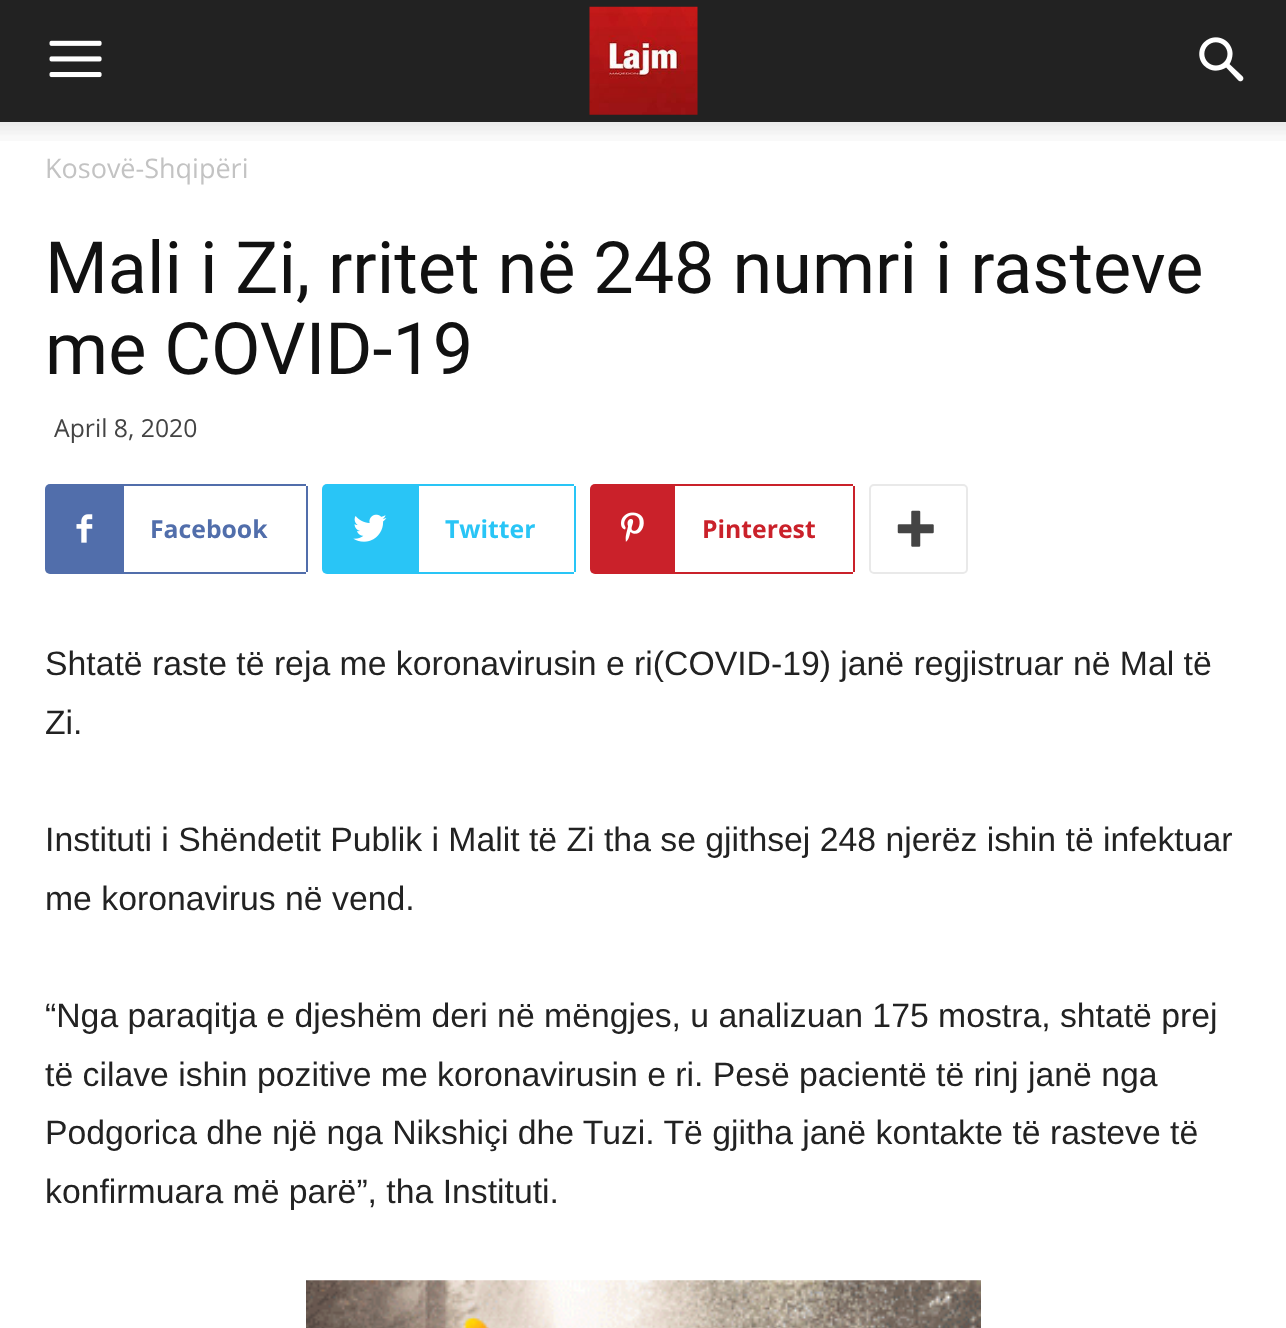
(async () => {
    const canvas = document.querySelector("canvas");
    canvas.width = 1286;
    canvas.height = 1328;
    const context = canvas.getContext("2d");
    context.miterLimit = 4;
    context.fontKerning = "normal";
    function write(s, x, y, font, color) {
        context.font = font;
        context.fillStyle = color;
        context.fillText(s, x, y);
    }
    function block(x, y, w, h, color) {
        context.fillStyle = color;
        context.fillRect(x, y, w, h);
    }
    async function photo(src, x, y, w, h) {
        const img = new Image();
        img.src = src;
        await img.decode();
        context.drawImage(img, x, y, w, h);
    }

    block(0, 0, 1286, 1328, "rgb(255, 255, 255)");
    block(0, 0, 1286, 122, "rgb(34, 34, 34)");
    await photo("media/1.png", 49, 40, 53, 38);
    await photo("media/2.png", 589, 6, 109, 109);
    await photo("media/3.png", 1199, 37, 45, 45);
    await photo("media/4.png", 0, 122, 1286, 19);
    write("Kosovë-Shqipëri", 45, 178, "27px Open Sans", "rgb(195, 195, 195)");
    write("Mali i Zi, rritet në 248 numri i rasteve", 45, 293, "72px Roboto", "rgb(17, 17, 17)");
    write("me COVID-19", 45, 374, "72px Roboto", "rgb(17, 17, 17)");
    write("April 8, 2020", 54, 437, "24.75px Open Sans", "rgb(68, 68, 68)");
    context.fillStyle = "rgb(81, 110, 171)";
    context.beginPath();
    context.roundRect(45, 484, 79, 90, [5, 0, 0, 5]);
    context.fill();
    await photo("media/5.png", 76, 514, 17, 29);
    block(124, 484, 182, 2, "rgb(81, 110, 171)");
    block(306, 486, 2, 86, "rgb(81, 110, 171)");
    block(124, 572, 182, 2, "rgb(81, 110, 171)");
    write("Facebook", 150, 538, "bold 24.75px Open Sans", "rgb(81, 110, 171)");
    context.fillStyle = "rgb(41, 197, 246)";
    context.beginPath();
    context.roundRect(322, 484, 97, 90, [5, 0, 0, 5]);
    context.fill();
    await photo("media/6.png", 353, 514, 34, 28);
    block(419, 484, 155, 2, "rgb(41, 197, 246)");
    block(574, 486, 2, 86, "rgb(41, 197, 246)");
    block(419, 572, 155, 2, "rgb(41, 197, 246)");
    write("Twitter", 445, 538, "bold 24.75px Open Sans", "rgb(41, 197, 246)");
    context.fillStyle = "rgb(202, 33, 42)";
    context.beginPath();
    context.roundRect(590, 484, 85, 90, [5, 0, 0, 5]);
    context.fill();
    await photo("media/7.png", 621, 512, 23, 30);
    block(675, 484, 178, 2, "rgb(202, 33, 42)");
    block(853, 486, 2, 86, "rgb(202, 33, 42)");
    block(675, 572, 178, 2, "rgb(202, 33, 42)");
    write("Pinterest", 702, 538, "bold 24.75px Open Sans", "rgb(202, 33, 42)");
    context.beginPath();
    context.roundRect(870, 485, 97, 88, 4);
    context.strokeStyle = "rgb(233, 233, 233)";
    context.lineWidth = 2;
    context.stroke();
    await photo("media/8.png", 897, 510, 37, 37);
    write("Shtatë raste të reja me koronavirusin e ri(COVID-19) janë regjistruar në Mal të", 45, 675, "33.75px Liberation Sans", "rgb(34, 34, 34)");
    write("Zi.", 45, 734, "33.75px Liberation Sans", "rgb(34, 34, 34)");
    write("Instituti i Shëndetit Publik i Malit të Zi tha se gjithsej 248 njerëz ishin të infektuar", 45, 851, "33.75px Liberation Sans", "rgb(34, 34, 34)");
    write("me koronavirus në vend.", 45, 910, "33.75px Liberation Sans", "rgb(34, 34, 34)");
    write("“Nga paraqitja e djeshëm deri në mëngjes, u analizuan 175 mostra, shtatë prej", 45, 1027, "33.75px Liberation Sans", "rgb(34, 34, 34)");
    write("të cilave ishin pozitive me koronavirusin e ri. Pesë pacientë të rinj janë nga", 45, 1086, "33.75px Liberation Sans", "rgb(34, 34, 34)");
    write("Podgorica dhe një nga Nikshiçi dhe Tuzi. Të gjitha janë kontakte të rasteve të", 45, 1144, "33.75px Liberation Sans", "rgb(34, 34, 34)");
    write("konfirmuara më parë”, tha Instituti.", 45, 1203, "33.75px Liberation Sans", "rgb(34, 34, 34)");
    await photo("media/9.png", 306, 1280, 675, 48);
})();
